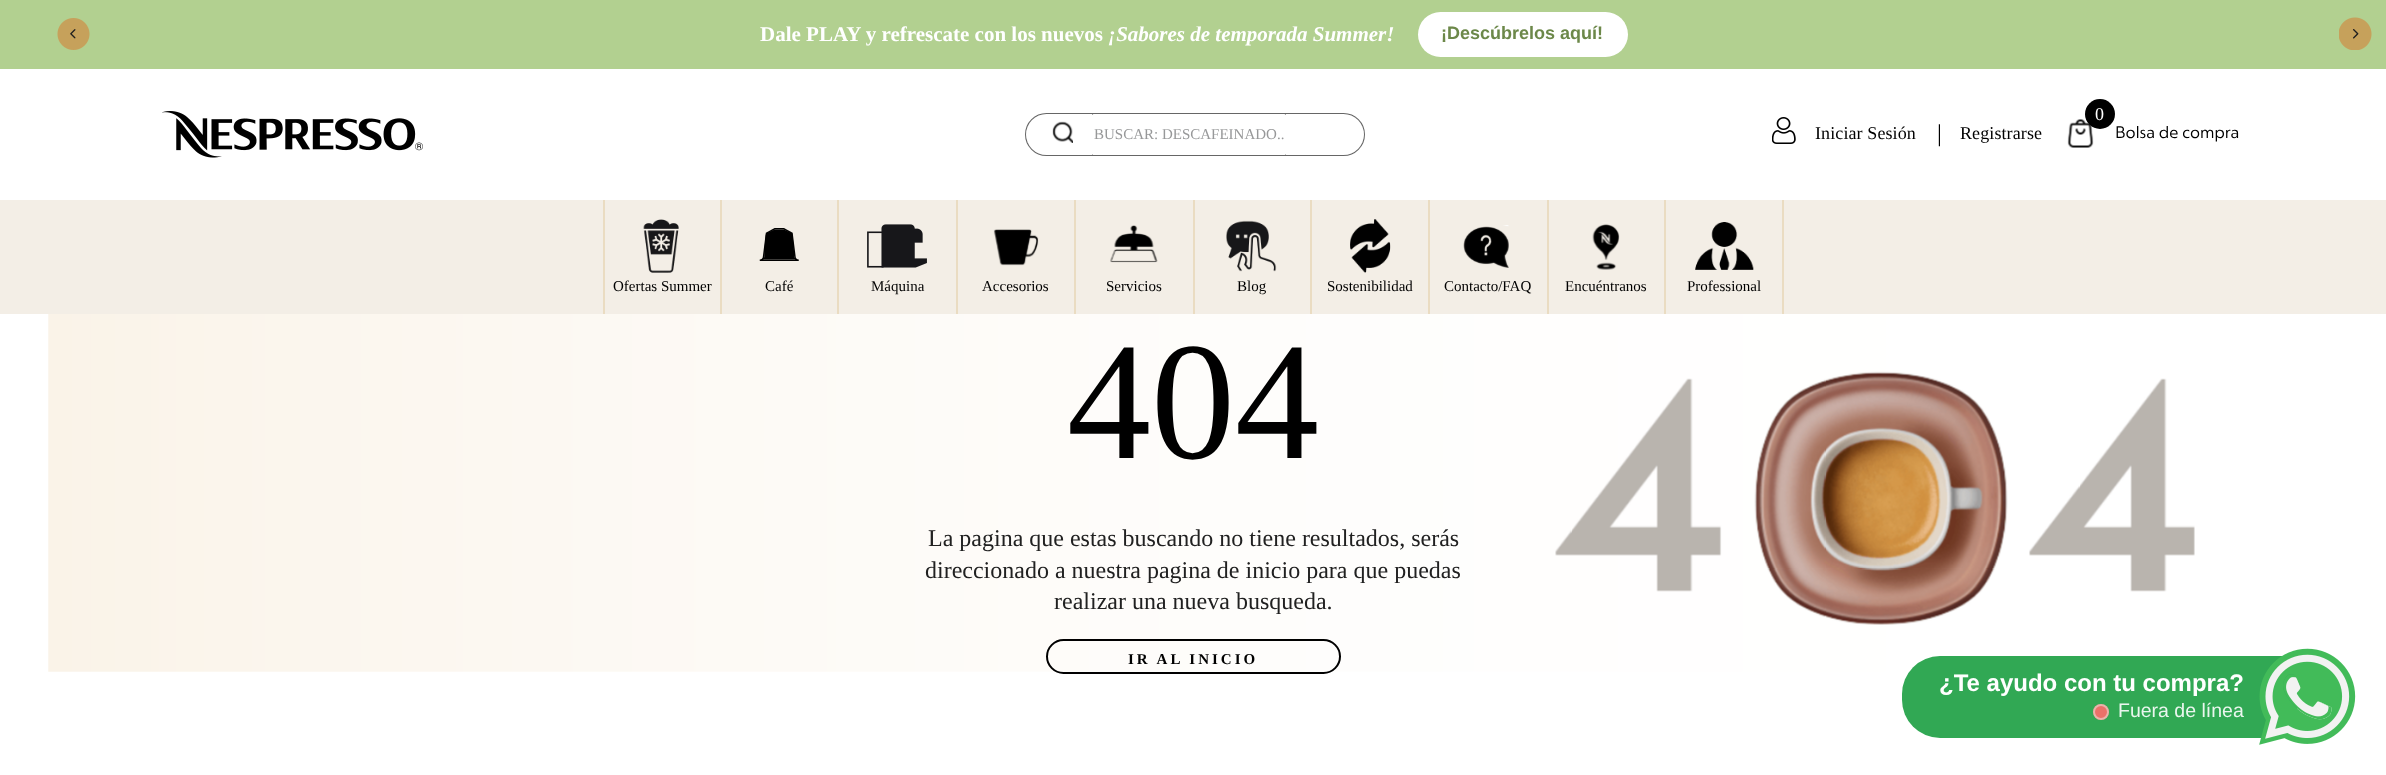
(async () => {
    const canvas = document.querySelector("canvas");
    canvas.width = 2386;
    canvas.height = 775;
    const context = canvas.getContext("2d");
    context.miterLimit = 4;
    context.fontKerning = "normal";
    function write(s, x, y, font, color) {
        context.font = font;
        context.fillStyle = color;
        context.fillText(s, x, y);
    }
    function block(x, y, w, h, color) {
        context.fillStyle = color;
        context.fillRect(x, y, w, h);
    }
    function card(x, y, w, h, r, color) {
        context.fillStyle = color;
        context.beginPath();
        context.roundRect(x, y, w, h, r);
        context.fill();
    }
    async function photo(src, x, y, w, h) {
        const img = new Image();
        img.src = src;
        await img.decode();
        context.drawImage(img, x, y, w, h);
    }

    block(0, 0, 2386, 775, "rgb(255, 255, 255)");
    block(0, 0, 2386, 69, "rgb(178, 208, 144)");
    await photo("media/1.png", 57, 18, 33, 32);
    write("Dale PLAY y refrescate con los nuevos", 760, 41, "bold 21px Liberation Serif", "rgb(255, 255, 255)");
    write("¡Sabores de temporada Summer!", 1108, 41, "italic bold 21px Liberation Serif", "rgb(255, 255, 255)");
    card(1418, 12, 210, 45, 22.5, "rgb(255, 255, 255)");
    write("¡Descúbrelos aquí!", 1441, 39, "bold 18px Liberation Sans", "rgb(108, 136, 73)");
    await photo("media/2.png", 2339, 17, 33, 33);
    await photo("media/3.png", 162, 111, 261, 47);
    await photo("media/4.png", 2067, 119, 172, 29);
    context.fillStyle = "rgb(0, 0, 0)";
    context.beginPath();
    context.arc(2100, 114, 15, 0, Math.PI * 2);
    context.fill();
    write("0", 2095, 120, "18px Liberation Serif", "rgb(255, 255, 255)");
    context.beginPath();
    context.roundRect(1026, 114, 338, 41, 20.5);
    context.strokeStyle = "rgb(102, 102, 102)";
    context.lineWidth = 2;
    context.stroke();
    context.beginPath();
    context.roundRect(1026, 114, 66, 41, [20.5, 0, 0, 20.5]);
    context.fill();
    await photo("media/5.png", 1052, 121, 21, 22);
    card(1092, 114, 194, 41, 1.5, "rgb(255, 255, 255)");
    write("BUSCAR: DESCAFEINADO..", 1094, 139, "15px Liberation Serif", "rgb(151, 152, 153)");
    context.fillStyle = "rgb(255, 255, 255)";
    context.beginPath();
    context.roundRect(1286, 114, 78, 41, [0, 20.5, 20.5, 0]);
    context.fill();
    await photo("media/6.png", 1772, 117, 24, 27);
    context.letterSpacing = "0.1px";
    write("Iniciar Sesión", 1815, 139, "18px Liberation Serif", "rgb(0, 0, 0)");
    context.letterSpacing = "0px";
    write("|", 1937, 141, "24px Liberation Serif", "rgb(0, 0, 0)");
    context.letterSpacing = "0.1px";
    write("Registrarse", 1960, 139, "18px Liberation Serif", "rgb(0, 0, 0)");
    block(0, 200, 2386, 114, "rgb(243, 238, 230)");
    block(720, 200, 2, 114, "rgb(234, 220, 194)");
    block(603, 200, 2, 114, "rgb(234, 220, 194)");
    await photo("media/7.png", 643, 219, 36, 54);
    context.letterSpacing = "0px";
    write("Ofertas Summer", 613, 291, "15px Liberation Serif", "rgb(0, 0, 0)");
    block(837, 200, 2, 114, "rgb(234, 220, 194)");
    await photo("media/8.png", 759, 228, 40, 33);
    write("Café", 765, 291, "15px Liberation Serif", "rgb(0, 0, 0)");
    block(956, 200, 2, 114, "rgb(234, 220, 194)");
    await photo("media/9.png", 867, 224, 60, 44);
    write("Máquina", 871, 291, "15px Liberation Serif", "rgb(0, 0, 0)");
    block(1074, 200, 2, 114, "rgb(234, 220, 194)");
    await photo("media/10.png", 993, 229, 46, 37);
    write("Accesorios", 982, 291, "15px Liberation Serif", "rgb(0, 0, 0)");
    block(1193, 200, 2, 114, "rgb(234, 220, 194)");
    await photo("media/11.png", 1110, 225, 48, 38);
    write("Servicios", 1106, 291, "15px Liberation Serif", "rgb(0, 0, 0)");
    block(1310, 200, 2, 114, "rgb(234, 220, 194)");
    await photo("media/12.png", 1226, 220, 51, 52);
    write("Blog", 1237, 291, "15px Liberation Serif", "rgb(0, 0, 0)");
    block(1428, 200, 2, 114, "rgb(234, 220, 194)");
    await photo("media/13.png", 1350, 219, 41, 54);
    write("Sostenibilidad", 1327, 291, "15px Liberation Serif", "rgb(0, 0, 0)");
    block(1547, 200, 2, 114, "rgb(234, 220, 194)");
    await photo("media/14.png", 1463, 225, 46, 43);
    write("Contacto/FAQ", 1444, 291, "15px Liberation Serif", "rgb(0, 0, 0)");
    block(1664, 200, 2, 114, "rgb(234, 220, 194)");
    await photo("media/15.png", 1592, 222, 28, 48);
    write("Encuéntranos", 1565, 291, "15px Liberation Serif", "rgb(0, 0, 0)");
    block(1782, 200, 2, 114, "rgb(234, 220, 194)");
    await photo("media/16.png", 1695, 222, 59, 48);
    write("Professional", 1687, 291, "15px Liberation Serif", "rgb(0, 0, 0)");
    await photo("media/18.png", 48, 314, 2147, 358);
    context.fillStyle = "rgb(49, 168, 84)";
    context.beginPath();
    context.roundRect(1902, 656, 395, 82, [38, 0, 0, 38]);
    context.fill();
    write("¿Te ayudo con tu compra?", 1939, 691, "bold 24px Liberation Sans", "rgb(255, 255, 255)");
    context.fillStyle = "rgb(234, 113, 105)";
    context.beginPath();
    context.arc(2101, 712, 8, 0, Math.PI * 2);
    context.fill();
    context.beginPath();
    context.arc(2101, 712, 7, 0, Math.PI * 2);
    context.strokeStyle = "rgba(234, 246, 238, 0.5)";
    context.stroke();
    write("Fuera de línea", 2118, 717, "19.5px Liberation Sans", "rgb(234, 246, 238)");
    await photo("media/17.png", 2259, 648, 97, 97);
    write("404", 1067, 458, "168px Liberation Serif", "rgb(0, 0, 0)");
    write("La pagina que estas buscando no tiene resultados, serás", 928, 546, "24px Liberation Serif", "rgb(33, 33, 33)");
    write("direccionado a nuestra pagina de inicio para que puedas", 925, 578, "24px Liberation Serif", "rgb(33, 33, 33)");
    write("realizar una nueva busqueda.", 1054, 609, "24px Liberation Serif", "rgb(33, 33, 33)");
    context.beginPath();
    context.roundRect(1047, 640, 293, 33, 16.5);
    context.strokeStyle = "rgb(0, 0, 0)";
    context.stroke();
    context.letterSpacing = "3px";
    write("IR AL INICIO", 1128, 664, "bold 15px Liberation Serif", "rgb(0, 0, 0)");
})();
